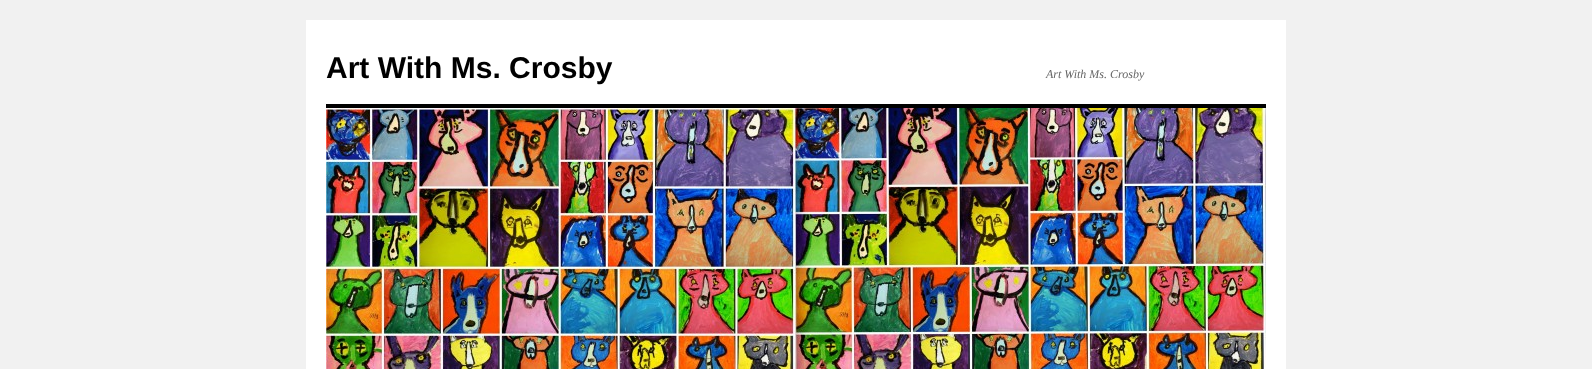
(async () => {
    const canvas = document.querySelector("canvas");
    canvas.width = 1592;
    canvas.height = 369;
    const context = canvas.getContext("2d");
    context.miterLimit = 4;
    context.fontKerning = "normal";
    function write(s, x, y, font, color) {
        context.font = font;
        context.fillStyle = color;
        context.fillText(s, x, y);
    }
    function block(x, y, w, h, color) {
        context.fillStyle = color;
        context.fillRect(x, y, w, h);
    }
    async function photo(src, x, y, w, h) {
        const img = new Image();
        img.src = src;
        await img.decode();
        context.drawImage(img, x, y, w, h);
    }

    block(0, 0, 1592, 369, "rgb(241, 241, 241)");
    block(306, 20, 980, 349, "rgb(255, 255, 255)");
    write("Art With Ms. Crosby", 326, 78, "bold 30px Liberation Sans", "rgb(0, 0, 0)");
    write("Art With Ms. Crosby", 1046, 78, "italic 12px Liberation Serif", "rgb(102, 102, 102)");
    block(326, 104, 940, 4, "rgb(0, 0, 0)");
    await photo("media/1.png", 326, 108, 940, 261);
})();
